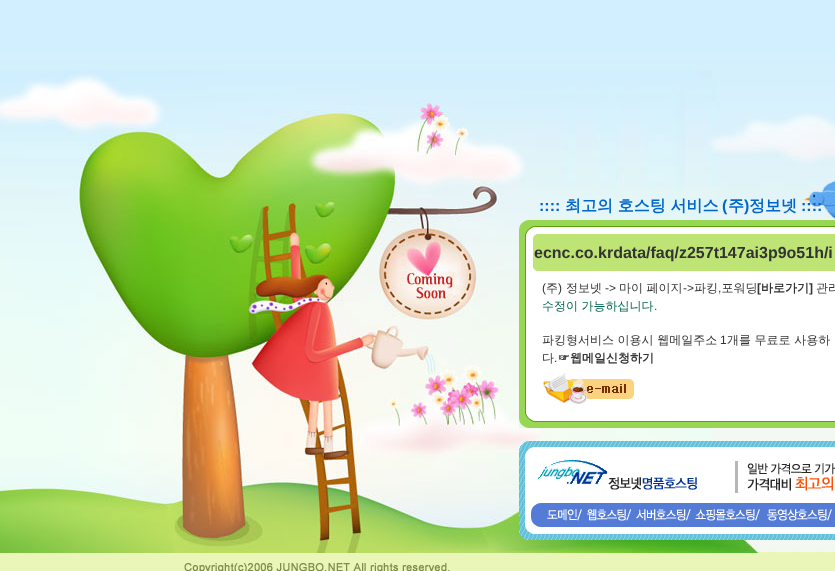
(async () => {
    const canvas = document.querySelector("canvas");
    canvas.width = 835;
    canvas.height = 571;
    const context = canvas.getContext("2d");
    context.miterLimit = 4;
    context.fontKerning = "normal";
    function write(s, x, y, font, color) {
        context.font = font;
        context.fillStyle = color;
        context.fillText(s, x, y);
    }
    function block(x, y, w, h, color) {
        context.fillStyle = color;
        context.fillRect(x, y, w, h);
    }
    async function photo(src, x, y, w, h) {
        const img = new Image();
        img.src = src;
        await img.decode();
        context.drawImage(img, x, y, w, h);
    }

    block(0, 0, 835, 571, "rgb(255, 255, 255)");
    await photo("media/1.png", 0, 0, 835, 70);
    await photo("media/2.png", 0, 70, 835, 483);
    write("::::", 539, 211, "bold 16px Liberation Sans", "rgb(0, 102, 204)");
    write("최고의 호스팅 서비스", 565, 211, "bold 16px WenQuanYi Zen Hei", "rgb(0, 102, 204)");
    write("(", 722, 211, "bold 16px Liberation Sans", "rgb(0, 102, 204)");
    write("주", 728, 211, "bold 16px WenQuanYi Zen Hei", "rgb(0, 102, 204)");
    write(")", 744, 211, "bold 16px Liberation Sans", "rgb(0, 102, 204)");
    write("정보넷", 749, 211, "bold 16px WenQuanYi Zen Hei", "rgb(0, 102, 204)");
    write("::::", 801, 211, "bold 16px Liberation Sans", "rgb(0, 102, 204)");
    await photo("media/3.png", 519, 220, 316, 14);
    await photo("media/4.png", 519, 234, 316, 37);
    write("ecnc.co.krdata/faq/z257t147ai3p9o51h/i", 534, 258, "bold 16px Liberation Sans", "rgb(51, 51, 51)");
    await photo("media/5.png", 519, 271, 316, 142);
    write("(", 542, 292, "12px Liberation Sans", "rgb(51, 51, 51)");
    write("주", 546, 292, "500 12px WenQuanYi Zen Hei", "rgb(51, 51, 51)");
    write(")", 558, 292, "12px Liberation Sans", "rgb(51, 51, 51)");
    write("정보넷", 566, 292, "500 12px WenQuanYi Zen Hei", "rgb(51, 51, 51)");
    write("->", 605, 292, "12px Liberation Sans", "rgb(51, 51, 51)");
    write("마이 페이지", 619, 292, "500 12px WenQuanYi Zen Hei", "rgb(51, 51, 51)");
    write("->", 683, 292, "12px Liberation Sans", "rgb(51, 51, 51)");
    write("파킹 포워딩", 694, 292, "500 12px WenQuanYi Zen Hei", "rgb(51, 51, 51)");
    write("[", 757, 292, "bold 12px Liberation Sans", "rgb(51, 51, 51)");
    write("바로가기", 761, 292, "bold 12px WenQuanYi Zen Hei", "rgb(51, 51, 51)");
    write("]", 809, 292, "bold 12px Liberation Sans", "rgb(51, 51, 51)");
    write("관리", 816, 292, "500 12px WenQuanYi Zen Hei", "rgb(51, 51, 51)");
    write(",", 718, 292, "12px Liberation Sans", "rgb(51, 51, 51)");
    write("수정이 가능하십니다", 542, 310, "500 12px WenQuanYi Zen Hei", "rgb(0, 103, 77)");
    write(".", 654, 310, "12px Liberation Sans", "rgb(0, 103, 77)");
    write("파킹형서비스 이용시 웹메일주소", 542, 344, "500 12px WenQuanYi Zen Hei", "rgb(51, 51, 51)");
    write("1", 720, 344, "12px Liberation Sans", "rgb(51, 51, 51)");
    write("개를 무료로 사용하", 727, 344, "500 12px WenQuanYi Zen Hei", "rgb(51, 51, 51)");
    write("다", 542, 362, "500 12px WenQuanYi Zen Hei", "rgb(51, 51, 51)");
    write(".", 554, 362, "12px Liberation Sans", "rgb(51, 51, 51)");
    write("☞웹메일신청하기", 558, 362, "bold 12px WenQuanYi Zen Hei", "rgb(51, 51, 51)");
    await photo("media/6.png", 543, 373, 91, 31);
    await photo("media/7.png", 519, 413, 316, 15);
    await photo("media/8.png", 519, 441, 316, 99);
    block(0, 553, 835, 18, "rgb(233, 246, 184)");
    await photo("media/9.png", 184, 563, 266, 8);
})();
